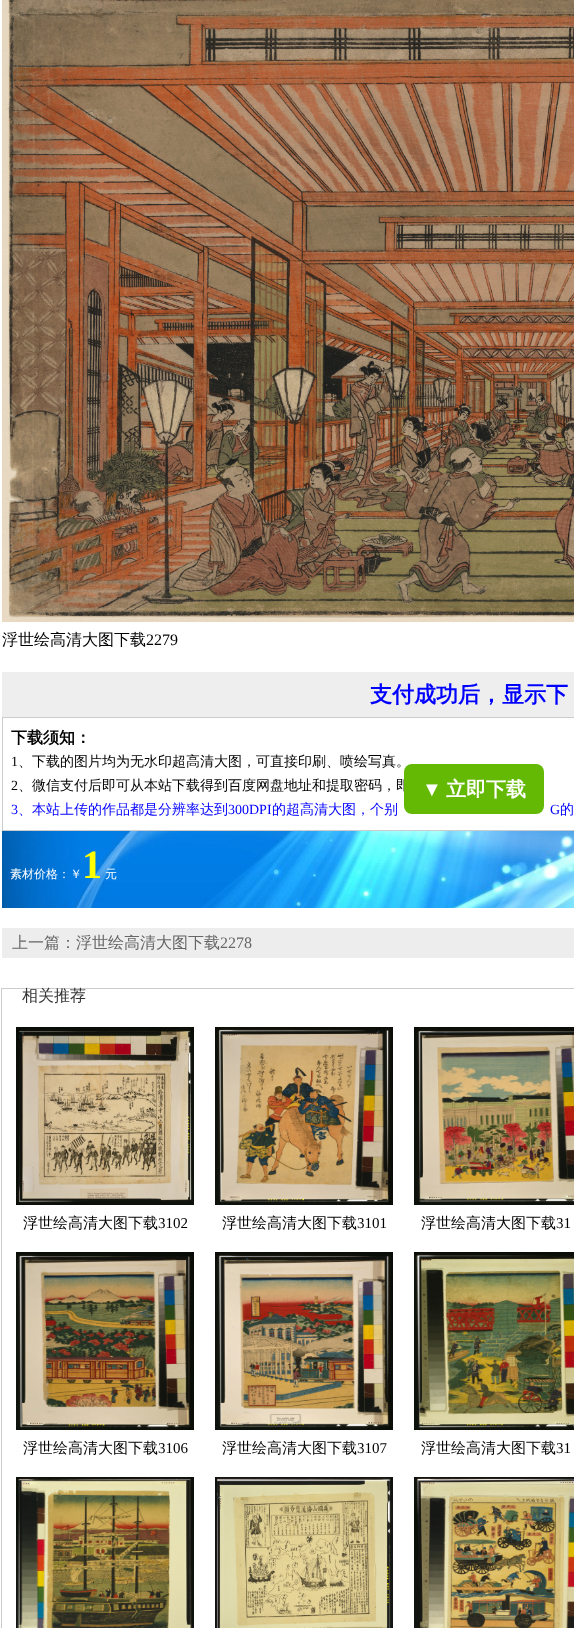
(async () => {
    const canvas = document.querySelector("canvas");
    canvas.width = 574;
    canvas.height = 1628;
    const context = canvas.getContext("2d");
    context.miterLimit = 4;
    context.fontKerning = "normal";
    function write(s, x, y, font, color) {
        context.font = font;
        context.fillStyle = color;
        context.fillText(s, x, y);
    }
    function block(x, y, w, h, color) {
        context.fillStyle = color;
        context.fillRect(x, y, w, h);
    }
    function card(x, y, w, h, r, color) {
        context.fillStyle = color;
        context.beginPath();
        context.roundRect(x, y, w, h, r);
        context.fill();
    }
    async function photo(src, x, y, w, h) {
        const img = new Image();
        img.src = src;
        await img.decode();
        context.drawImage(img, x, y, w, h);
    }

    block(0, 0, 574, 1628, "rgb(255, 255, 255)");
    await photo("media/1.png", 2, 0, 572, 622);
    write("浮世绘高清大图下载", 2, 645, "500 16px WenQuanYi Zen Hei", "rgb(0, 0, 0)");
    write("2279", 146, 645, "16px Liberation Serif", "rgb(0, 0, 0)");
    block(2, 672, 572, 45, "rgb(238, 238, 238)");
    write("支付成功后，显示下", 370, 702, "bold 22px WenQuanYi Zen Hei", "rgb(0, 0, 255)");
    context.strokeStyle = "rgb(204, 204, 204)";
    context.strokeRect(2.5, 717.5, 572, 113);
    write("下载须知：", 11, 743, "bold 16px WenQuanYi Zen Hei", "rgb(0, 0, 0)");
    write("1", 11, 766, "14px Liberation Serif", "rgb(0, 0, 0)");
    write("、下载的图片均为无水印超高清大图，可直接印刷、喷绘写真。", 18, 766, "500 14px WenQuanYi Zen Hei", "rgb(0, 0, 0)");
    write("2", 11, 790, "14px Liberation Serif", "rgb(0, 0, 0)");
    write("、微信支付后即可从本站下载得到百度网盘地址和提取密码，即", 18, 790, "500 14px WenQuanYi Zen Hei", "rgb(0, 0, 0)");
    write("3", 11, 814, "14px Liberation Serif", "rgb(0, 0, 255)");
    write("、本站上传的作品都是分辨率达到", 18, 814, "500 14px WenQuanYi Zen Hei", "rgb(0, 0, 255)");
    write("300DPI", 228, 814, "14px Liberation Serif", "rgb(0, 0, 255)");
    write("的超高清大图，个别", 272, 814, "500 14px WenQuanYi Zen Hei", "rgb(0, 0, 255)");
    write("G", 550, 814, "14px Liberation Serif", "rgb(0, 0, 255)");
    write("的", 560, 814, "500 14px WenQuanYi Zen Hei", "rgb(0, 0, 255)");
    await photo("media/2.png", 2, 831, 572, 77);
    write("素材价格：￥", 10, 878, "500 12px WenQuanYi Zen Hei", "rgb(255, 255, 255)");
    write("1", 82, 878, "bold 40px Liberation Serif", "rgb(255, 255, 0)");
    write("元", 105, 878, "500 12px WenQuanYi Zen Hei", "rgb(255, 255, 255)");
    block(2, 928, 572, 30, "rgb(237, 237, 237)");
    write("上一篇：浮世绘高清大图下载", 12, 948, "500 16px WenQuanYi Zen Hei", "rgb(102, 102, 102)");
    write("2278", 220, 948, "16px Liberation Serif", "rgb(102, 102, 102)");
    card(404, 764, 140, 50, 8, "rgb(100, 185, 5)");
    write("▼", 422, 796, "bold 20px Liberation Serif", "rgb(255, 255, 255)");
    write("立即下载", 446, 796, "bold 20px WenQuanYi Zen Hei", "rgb(255, 255, 255)");
    context.strokeRect(1.5, 988.5, 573, 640);
    write("相关推荐", 22, 1001, "500 16px WenQuanYi Zen Hei", "rgb(51, 51, 51)");
    await photo("media/3.png", 16, 1027, 178, 178);
    write("浮世绘高清大图下载", 23, 1228, "500 15px WenQuanYi Zen Hei", "rgb(0, 0, 0)");
    write("3102", 158, 1228, "15px Liberation Serif", "rgb(0, 0, 0)");
    await photo("media/4.png", 215, 1027, 178, 178);
    write("浮世绘高清大图下载", 222, 1228, "500 15px WenQuanYi Zen Hei", "rgb(0, 0, 0)");
    write("3101", 357, 1228, "15px Liberation Serif", "rgb(0, 0, 0)");
    await photo("media/5.png", 414, 1027, 160, 178);
    write("浮世绘高清大图下载", 421, 1228, "500 15px WenQuanYi Zen Hei", "rgb(0, 0, 0)");
    write("31", 556, 1228, "15px Liberation Serif", "rgb(0, 0, 0)");
    await photo("media/6.png", 16, 1252, 178, 178);
    write("浮世绘高清大图下载", 23, 1453, "500 15px WenQuanYi Zen Hei", "rgb(0, 0, 0)");
    write("3106", 158, 1453, "15px Liberation Serif", "rgb(0, 0, 0)");
    await photo("media/7.png", 215, 1252, 178, 178);
    write("浮世绘高清大图下载", 222, 1453, "500 15px WenQuanYi Zen Hei", "rgb(0, 0, 0)");
    write("3107", 357, 1453, "15px Liberation Serif", "rgb(0, 0, 0)");
    await photo("media/8.png", 414, 1252, 160, 178);
    write("浮世绘高清大图下载", 421, 1453, "500 15px WenQuanYi Zen Hei", "rgb(0, 0, 0)");
    write("31", 556, 1453, "15px Liberation Serif", "rgb(0, 0, 0)");
    await photo("media/9.png", 16, 1477, 178, 151);
    await photo("media/10.png", 215, 1477, 178, 151);
    await photo("media/11.png", 414, 1477, 160, 151);
})();
